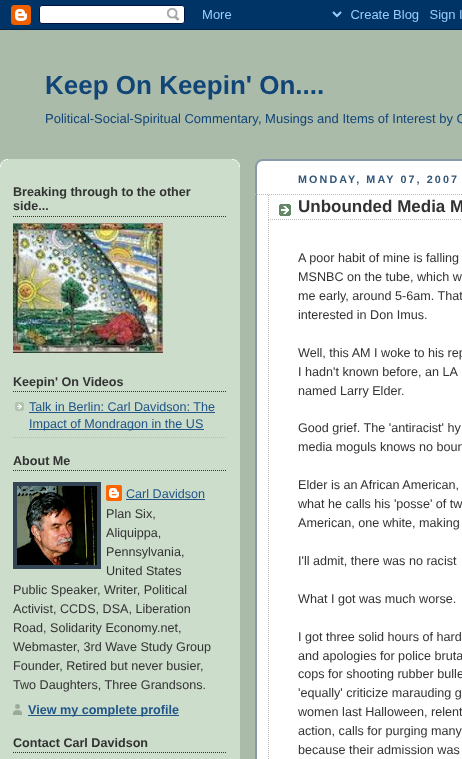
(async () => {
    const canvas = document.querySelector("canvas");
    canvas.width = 462;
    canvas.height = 759;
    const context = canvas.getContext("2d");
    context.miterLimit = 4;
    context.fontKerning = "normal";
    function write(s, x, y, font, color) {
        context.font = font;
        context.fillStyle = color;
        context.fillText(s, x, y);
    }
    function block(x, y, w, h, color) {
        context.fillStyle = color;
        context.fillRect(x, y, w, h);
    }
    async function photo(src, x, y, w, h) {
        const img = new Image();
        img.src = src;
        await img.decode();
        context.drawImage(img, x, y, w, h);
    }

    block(0, 0, 462, 759, "rgb(170, 187, 170)");
    await photo("media/1.png", 0, 0, 462, 30);
    write("Keep On Keepin' On....", 45, 94, "bold 26px Liberation Sans", "rgb(17, 68, 119)");
    write("Political-Social-Spiritual Commentary, Musings and Items of Interest by C", 45, 123, "13px Liberation Sans", "rgb(17, 68, 119)");
    block(0, 159, 240, 600, "rgb(204, 221, 204)");
    await photo("media/2.png", 0, 159, 240, 8);
    context.beginPath();
    context.moveTo(13, 216.5);
    context.lineTo(227, 216.5);
    context.strokeStyle = "rgb(51, 51, 51)";
    context.setLineDash([1, 1]);
    context.stroke();
    write("Breaking through to the other", 13, 196, "bold 12.6px Liberation Sans", "rgb(51, 51, 51)");
    write("side...", 13, 210, "bold 12.6px Liberation Sans", "rgb(51, 51, 51)");
    await photo("media/3.png", 13, 223, 150, 130);
    context.beginPath();
    context.moveTo(13, 391.5);
    context.lineTo(227, 391.5);
    context.stroke();
    write("Keepin' On Videos", 13, 386, "bold 12.6px Liberation Sans", "rgb(51, 51, 51)");
    await photo("media/4.png", 15, 402, 9, 9);
    context.beginPath();
    context.moveTo(13, 437.5);
    context.lineTo(227, 437.5);
    context.strokeStyle = "rgb(187, 187, 187)";
    context.stroke();
    write("Talk in Berlin: Carl Davidson: The", 29, 411, "12.6px Liberation Sans", "rgb(34, 85, 136)");
    block(29, 412, 186, 1, "rgb(34, 85, 136)");
    block(29, 429, 175, 1, "rgb(34, 85, 136)");
    write("Impact of Mondragon in the US", 29, 428, "12.6px Liberation Sans", "rgb(34, 85, 136)");
    context.beginPath();
    context.moveTo(13, 470.5);
    context.lineTo(227, 470.5);
    context.strokeStyle = "rgb(51, 51, 51)";
    context.stroke();
    write("About Me", 13, 465, "bold 12.6px Liberation Sans", "rgb(51, 51, 51)");
    context.strokeStyle = "rgb(51, 68, 85)";
    context.lineWidth = 4;
    context.setLineDash([]);
    context.strokeRect(15, 484, 84, 83);
    await photo("media/5.png", 17, 486, 80, 79);
    await photo("media/6.png", 106, 485, 16, 16);
    write("Carl Davidson", 126, 498, "12.6px Liberation Sans", "rgb(34, 85, 136)");
    block(126, 499, 79, 1, "rgb(34, 85, 136)");
    write("Plan Six,", 106, 518, "12.6px Liberation Sans", "rgb(51, 51, 51)");
    write("Aliquippa,", 106, 537, "12.6px Liberation Sans", "rgb(51, 51, 51)");
    write("Pennsylvania,", 106, 556, "12.6px Liberation Sans", "rgb(51, 51, 51)");
    write("United States", 106, 575, "12.6px Liberation Sans", "rgb(51, 51, 51)");
    write("Public Speaker, Writer, Political", 13, 594, "12.6px Liberation Sans", "rgb(51, 51, 51)");
    write("Activist, CCDS, DSA, Liberation", 13, 613, "12.6px Liberation Sans", "rgb(51, 51, 51)");
    write("Road, Solidarity Economy.net,", 13, 632, "12.6px Liberation Sans", "rgb(51, 51, 51)");
    write("Webmaster, 3rd Wave Study Group", 13, 651, "12.6px Liberation Sans", "rgb(51, 51, 51)");
    write("Founder, Retired but never busier,", 13, 670, "12.6px Liberation Sans", "rgb(51, 51, 51)");
    write("Two Daughters, Three Grandsons.", 13, 689, "12.6px Liberation Sans", "rgb(51, 51, 51)");
    await photo("media/7.png", 13, 704, 9, 11);
    block(28, 715, 151, 1, "rgb(34, 85, 136)");
    write("View my complete profile", 28, 714, "bold 12.6px Liberation Sans", "rgb(34, 85, 136)");
    context.beginPath();
    context.moveTo(13, 752.5);
    context.lineTo(227, 752.5);
    context.strokeStyle = "rgb(51, 51, 51)";
    context.lineWidth = 1;
    context.setLineDash([1, 1]);
    context.stroke();
    write("Contact Carl Davidson", 13, 747, "bold 12.6px Liberation Sans", "rgb(51, 51, 51)");
    block(257, 161, 205, 598, "rgb(255, 255, 255)");
    await photo("media/8.png", 255, 159, 207, 50);
    block(255, 209, 2, 550, "rgb(136, 153, 170)");
    context.letterSpacing = "2.1px";
    write("MONDAY, MAY 07, 2007", 298, 183, "bold 10.75px Liberation Sans", "rgb(51, 85, 119)");
    context.beginPath();
    context.moveTo(255, 194.5);
    context.lineTo(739, 194.5);
    context.strokeStyle = "rgb(187, 187, 187)";
    context.stroke();
    await photo("media/9.png", 279, 204, 12, 12);
    context.beginPath();
    context.moveTo(268, 219.5);
    context.lineTo(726, 219.5);
    context.stroke();
    context.beginPath();
    context.moveTo(268.5, 195);
    context.lineTo(268.5, 220);
    context.stroke();
    context.letterSpacing = "0px";
    write("Unbounded Media M", 298, 212, "bold 17px Liberation Sans", "rgb(51, 51, 51)");
    context.beginPath();
    context.moveTo(268.5, 220);
    context.lineTo(268.5, 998);
    context.stroke();
    write("A poor habit of mine is falling", 298, 262, "12.6px Liberation Sans", "rgb(51, 51, 51)");
    write("MSNBC on the tube, which w", 298, 281, "12.6px Liberation Sans", "rgb(51, 51, 51)");
    write("me early, around 5-6am. That", 298, 300, "12.6px Liberation Sans", "rgb(51, 51, 51)");
    write("interested in Don Imus.", 298, 319, "12.6px Liberation Sans", "rgb(51, 51, 51)");
    write("Well, this AM I woke to his rep", 298, 357, "12.6px Liberation Sans", "rgb(51, 51, 51)");
    write("I hadn't known before, an LA", 298, 376, "12.6px Liberation Sans", "rgb(51, 51, 51)");
    write("named Larry Elder.", 298, 395, "12.6px Liberation Sans", "rgb(51, 51, 51)");
    write("Good grief. The 'antiracist' hy", 298, 432, "12.6px Liberation Sans", "rgb(51, 51, 51)");
    write("media moguls knows no boun", 298, 451, "12.6px Liberation Sans", "rgb(51, 51, 51)");
    write("Elder is an African American,", 298, 489, "12.6px Liberation Sans", "rgb(51, 51, 51)");
    write("what he calls his 'posse' of tw", 298, 508, "12.6px Liberation Sans", "rgb(51, 51, 51)");
    write("American, one white, making", 298, 527, "12.6px Liberation Sans", "rgb(51, 51, 51)");
    write("I'll admit, there was no racist", 298, 565, "12.6px Liberation Sans", "rgb(51, 51, 51)");
    write("What I got was much worse.", 298, 603, "12.6px Liberation Sans", "rgb(51, 51, 51)");
    write("I got three solid hours of hard", 298, 641, "12.6px Liberation Sans", "rgb(51, 51, 51)");
    write("and apologies for police bruta", 298, 660, "12.6px Liberation Sans", "rgb(51, 51, 51)");
    write("cops for shooting rubber bulle", 298, 678, "12.6px Liberation Sans", "rgb(51, 51, 51)");
    write("'equally' criticize marauding g", 298, 697, "12.6px Liberation Sans", "rgb(51, 51, 51)");
    write("women last Halloween, relent", 298, 716, "12.6px Liberation Sans", "rgb(51, 51, 51)");
    write("action, calls for purging many", 298, 735, "12.6px Liberation Sans", "rgb(51, 51, 51)");
    write("because their admission was", 298, 754, "12.6px Liberation Sans", "rgb(51, 51, 51)");
})();
